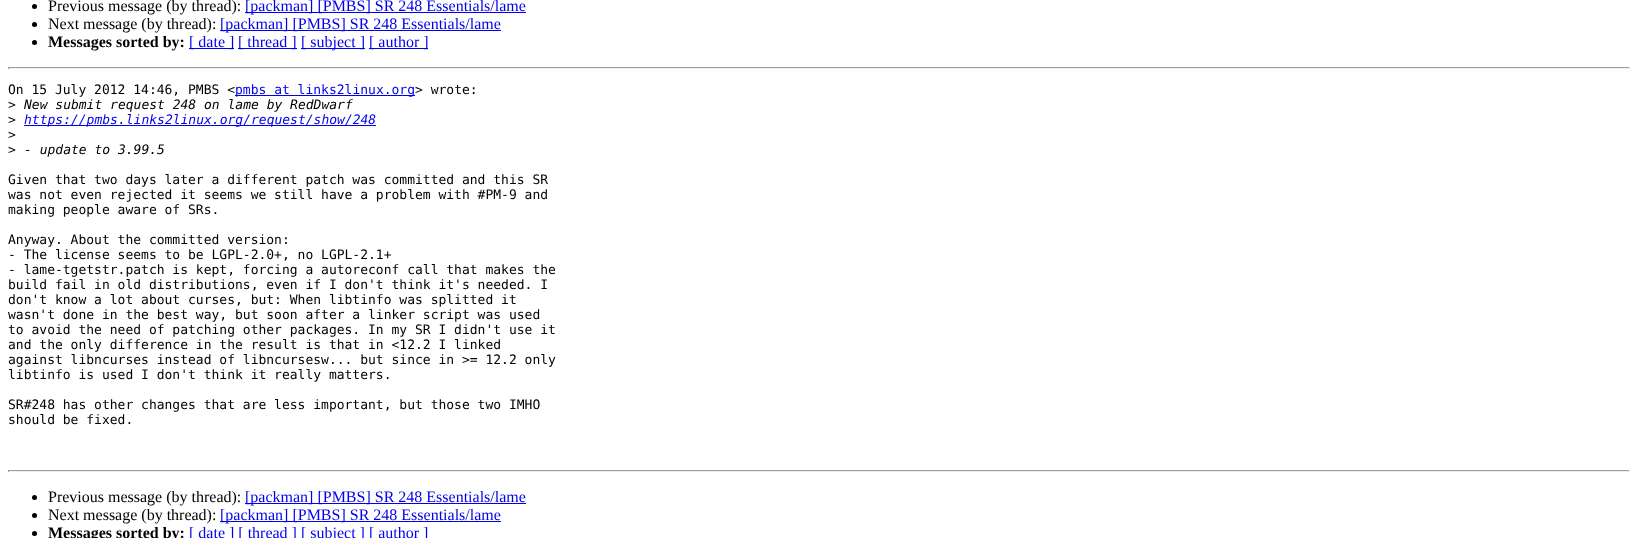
(async () => {
    const canvas = document.querySelector("canvas");
    canvas.width = 1638;
    canvas.height = 538;
    const context = canvas.getContext("2d");
    context.miterLimit = 4;
    context.fontKerning = "normal";
    function write(s, x, y, font, color) {
        context.font = font;
        context.fillStyle = color;
        context.fillText(s, x, y);
    }
    function block(x, y, w, h, color) {
        context.fillStyle = color;
        context.fillRect(x, y, w, h);
    }

    block(0, 0, 1638, 538, "rgb(255, 255, 255)");
    context.fillStyle = "rgb(0, 0, 0)";
    context.beginPath();
    context.arc(34.5, 6.5, 2.5, 0, Math.PI * 2);
    context.fill();
    write("Previous message (by thread):", 48, 11, "16px Liberation Serif", "rgb(0, 0, 0)");
    block(245, 12, 281, 1, "rgb(0, 0, 238)");
    write("[packman] [PMBS] SR 248 Essentials/lame", 245, 11, "16px Liberation Serif", "rgb(0, 0, 238)");
    context.fillStyle = "rgb(0, 0, 0)";
    context.beginPath();
    context.arc(34.5, 24.5, 2.5, 0, Math.PI * 2);
    context.fill();
    write("Next message (by thread):", 48, 29, "16px Liberation Serif", "rgb(0, 0, 0)");
    block(220, 30, 281, 1, "rgb(0, 0, 238)");
    write("[packman] [PMBS] SR 248 Essentials/lame", 220, 29, "16px Liberation Serif", "rgb(0, 0, 238)");
    context.fillStyle = "rgb(0, 0, 0)";
    context.beginPath();
    context.arc(34.5, 42.5, 2.5, 0, Math.PI * 2);
    context.fill();
    write("Messages sorted by:", 48, 47, "bold 16px Liberation Serif", "rgb(0, 0, 0)");
    block(189, 48, 45, 1, "rgb(0, 0, 238)");
    write("[ date ]", 189, 47, "16px Liberation Serif", "rgb(0, 0, 238)");
    block(238, 48, 59, 1, "rgb(0, 0, 238)");
    write("[ thread ]", 238, 47, "16px Liberation Serif", "rgb(0, 0, 238)");
    block(301, 48, 64, 1, "rgb(0, 0, 238)");
    write("[ subject ]", 301, 47, "16px Liberation Serif", "rgb(0, 0, 238)");
    block(369, 48, 59, 1, "rgb(0, 0, 238)");
    write("[ author ]", 369, 47, "16px Liberation Serif", "rgb(0, 0, 238)");
    block(8, 67, 1622, 1, "rgb(159, 159, 159)");
    block(1629, 67, 1, 2, "rgb(238, 238, 238)");
    block(8, 68, 1622, 1, "rgb(238, 238, 238)");
    block(8, 67, 1, 2, "rgb(159, 159, 159)");
    write("On 15 July 2012 14:46, PMBS <", 8, 94, "13px DejaVu Sans Mono", "rgb(0, 0, 0)");
    block(235, 95, 180, 1, "rgb(0, 0, 238)");
    write("pmbs at links2linux.org", 235, 94, "13px DejaVu Sans Mono", "rgb(0, 0, 238)");
    write("> wrote:", 415, 94, "13px DejaVu Sans Mono", "rgb(0, 0, 0)");
    write(">", 8, 109, "13px DejaVu Sans Mono", "rgb(0, 0, 0)");
    write("New submit request 248 on lame by RedDwarf", 24, 109, "italic 13px DejaVu Sans Mono", "rgb(0, 0, 0)");
    write(">", 8, 124, "13px DejaVu Sans Mono", "rgb(0, 0, 0)");
    block(24, 125, 352, 1, "rgb(0, 0, 238)");
    write("https://pmbs.links2linux.org/request/show/248", 24, 124, "italic 13px DejaVu Sans Mono", "rgb(0, 0, 238)");
    write(">", 8, 139, "13px DejaVu Sans Mono", "rgb(0, 0, 0)");
    write(">", 8, 154, "13px DejaVu Sans Mono", "rgb(0, 0, 0)");
    write("- update to 3.99.5", 24, 154, "italic 13px DejaVu Sans Mono", "rgb(0, 0, 0)");
    write("Given that two days later a different patch was committed and this SR", 8, 184, "13px DejaVu Sans Mono", "rgb(0, 0, 0)");
    write("was not even rejected it seems we still have a problem with #PM-9 and", 8, 199, "13px DejaVu Sans Mono", "rgb(0, 0, 0)");
    write("making people aware of SRs.", 8, 214, "13px DejaVu Sans Mono", "rgb(0, 0, 0)");
    write("Anyway. About the committed version:", 8, 244, "13px DejaVu Sans Mono", "rgb(0, 0, 0)");
    write("- The license seems to be LGPL-2.0+, no LGPL-2.1+", 8, 259, "13px DejaVu Sans Mono", "rgb(0, 0, 0)");
    write("- lame-tgetstr.patch is kept, forcing a autoreconf call that makes the", 8, 274, "13px DejaVu Sans Mono", "rgb(0, 0, 0)");
    write("build fail in old distributions, even if I don't think it's needed. I", 8, 289, "13px DejaVu Sans Mono", "rgb(0, 0, 0)");
    write("don't know a lot about curses, but: When libtinfo was splitted it", 8, 304, "13px DejaVu Sans Mono", "rgb(0, 0, 0)");
    write("wasn't done in the best way, but soon after a linker script was used", 8, 319, "13px DejaVu Sans Mono", "rgb(0, 0, 0)");
    write("to avoid the need of patching other packages. In my SR I didn't use it", 8, 334, "13px DejaVu Sans Mono", "rgb(0, 0, 0)");
    write("and the only difference in the result is that in <12.2 I linked", 8, 349, "13px DejaVu Sans Mono", "rgb(0, 0, 0)");
    write("against libncurses instead of libncursesw... but since in >= 12.2 only", 8, 364, "13px DejaVu Sans Mono", "rgb(0, 0, 0)");
    write("libtinfo is used I don't think it really matters.", 8, 379, "13px DejaVu Sans Mono", "rgb(0, 0, 0)");
    write("SR#248 has other changes that are less important, but those two IMHO", 8, 409, "13px DejaVu Sans Mono", "rgb(0, 0, 0)");
    write("should be fixed.", 8, 424, "13px DejaVu Sans Mono", "rgb(0, 0, 0)");
    block(8, 470, 1622, 1, "rgb(159, 159, 159)");
    block(1629, 470, 1, 2, "rgb(238, 238, 238)");
    block(8, 471, 1622, 1, "rgb(238, 238, 238)");
    block(8, 470, 1, 2, "rgb(159, 159, 159)");
    context.fillStyle = "rgb(0, 0, 0)";
    context.beginPath();
    context.arc(34.5, 497.5, 2.5, 0, Math.PI * 2);
    context.fill();
    write("Previous message (by thread):", 48, 502, "16px Liberation Serif", "rgb(0, 0, 0)");
    block(245, 503, 281, 1, "rgb(0, 0, 238)");
    write("[packman] [PMBS] SR 248 Essentials/lame", 245, 502, "16px Liberation Serif", "rgb(0, 0, 238)");
    context.fillStyle = "rgb(0, 0, 0)";
    context.beginPath();
    context.arc(34.5, 515.5, 2.5, 0, Math.PI * 2);
    context.fill();
    write("Next message (by thread):", 48, 520, "16px Liberation Serif", "rgb(0, 0, 0)");
    block(220, 521, 281, 1, "rgb(0, 0, 238)");
    write("[packman] [PMBS] SR 248 Essentials/lame", 220, 520, "16px Liberation Serif", "rgb(0, 0, 238)");
    context.fillStyle = "rgb(0, 0, 0)";
    context.beginPath();
    context.arc(34.5, 533.5, 2.5, 0, Math.PI * 2);
    context.fill();
    write("Messages sorted by:", 48, 538, "bold 16px Liberation Serif", "rgb(0, 0, 0)");
    write("[ date ] [ thread ] [ subject ] [ author ]", 189, 538, "16px Liberation Serif", "rgb(0, 0, 238)");
})();
